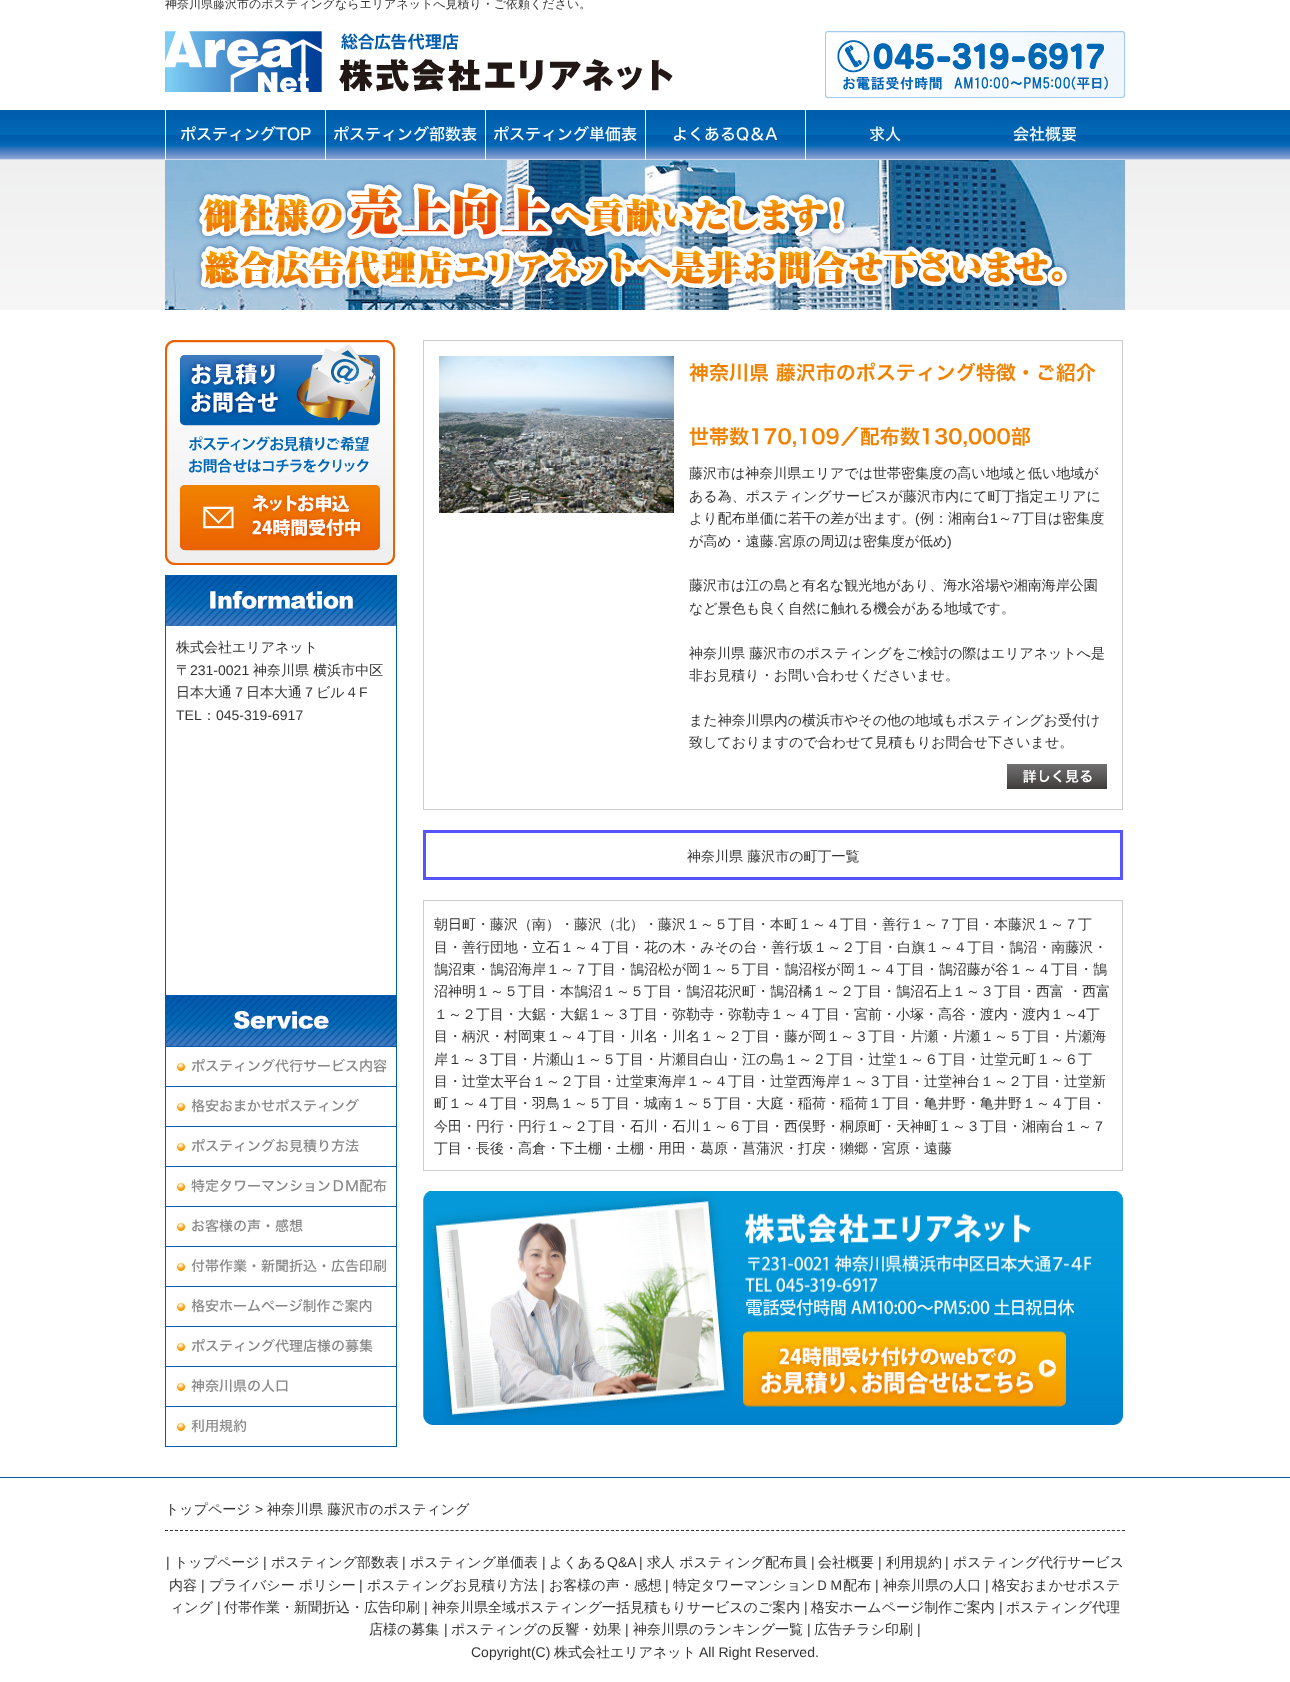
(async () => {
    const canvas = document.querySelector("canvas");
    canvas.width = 1290;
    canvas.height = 1682;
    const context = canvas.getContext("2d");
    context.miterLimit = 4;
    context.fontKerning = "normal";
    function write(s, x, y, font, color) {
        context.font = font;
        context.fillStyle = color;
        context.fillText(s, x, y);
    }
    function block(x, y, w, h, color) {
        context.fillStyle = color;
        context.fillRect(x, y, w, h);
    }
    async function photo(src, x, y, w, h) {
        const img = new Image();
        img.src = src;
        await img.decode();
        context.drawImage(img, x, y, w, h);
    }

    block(0, 0, 1290, 1682, "rgb(255, 255, 255)");
    write("神奈川県藤沢市のポスティングならエリアネットへ見積り・ご依頼ください。", 165, 8, "500 12px WenQuanYi Zen Hei", "rgb(51, 51, 51)");
    await photo("media/1.png", 165, 31, 960, 68);
    await photo("media/2.png", 0, 110, 1290, 50);
    block(165, 110, 1, 50, "rgb(255, 255, 255)");
    write("ポスティングTOP", 180, 140, "500 16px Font", "rgb(255, 255, 255)");
    block(325, 110, 1, 50, "rgb(255, 255, 255)");
    write("ポスティング部数表", 333, 140, "500 16px Font", "rgb(255, 255, 255)");
    block(485, 110, 1, 50, "rgb(255, 255, 255)");
    write("ポスティング単価表", 493, 140, "500 16px Font", "rgb(255, 255, 255)");
    block(645, 110, 1, 50, "rgb(255, 255, 255)");
    write("よくあるQ＆A", 672, 140, "500 16px Font", "rgb(255, 255, 255)");
    block(805, 110, 1, 50, "rgb(255, 255, 255)");
    write("求人", 869, 140, "500 16px Font", "rgb(255, 255, 255)");
    write("会社概要", 1013, 140, "500 16px Font", "rgb(255, 255, 255)");
    await photo("media/3.png", 0, 160, 1290, 150);
    await photo("media/4.png", 165, 160, 960, 150);
    await photo("media/5.png", 165, 340, 230, 225);
    block(165, 575, 232, 1, "rgb(0, 91, 172)");
    block(396, 575, 1, 872, "rgb(0, 91, 172)");
    block(165, 575, 1, 872, "rgb(0, 91, 172)");
    block(166, 995, 230, 1, "rgb(0, 91, 172)");
    await photo("media/6.png", 166, 576, 230, 50);
    write("株式会社エリアネット", 176, 652, "500 14px WenQuanYi Zen Hei", "rgb(51, 51, 51)");
    write("〒", 176, 675, "500 14px WenQuanYi Zen Hei", "rgb(51, 51, 51)");
    write("231-0021", 190, 675, "14px Liberation Sans", "rgb(51, 51, 51)");
    write("神奈川県 横浜市中区", 253, 675, "500 14px WenQuanYi Zen Hei", "rgb(51, 51, 51)");
    write("日本大通７日本大通７ビル４", 176, 697, "500 14px WenQuanYi Zen Hei", "rgb(51, 51, 51)");
    write("F", 359, 697, "14px Liberation Sans", "rgb(51, 51, 51)");
    write("TEL", 176, 720, "14px Liberation Sans", "rgb(51, 51, 51)");
    write("：", 202, 720, "500 14px WenQuanYi Zen Hei", "rgb(51, 51, 51)");
    write("045-319-6917", 216, 720, "14px Liberation Sans", "rgb(51, 51, 51)");
    block(166, 1046, 230, 1, "rgb(0, 91, 172)");
    await photo("media/7.png", 166, 996, 230, 50);
    await photo("media/8.png", 177, 1063, 8, 8);
    block(166, 1086, 230, 1, "rgb(0, 91, 172)");
    write("ポスティング代行サービス内容", 191, 1071, "500 14px Font", "rgb(136, 136, 136)");
    await photo("media/8.png", 177, 1103, 8, 8);
    block(166, 1126, 230, 1, "rgb(0, 91, 172)");
    write("格安おまかせポスティング", 191, 1111, "500 14px Font", "rgb(136, 136, 136)");
    await photo("media/8.png", 177, 1143, 8, 8);
    block(166, 1166, 230, 1, "rgb(0, 91, 172)");
    write("ポスティングお見積り方法", 191, 1151, "500 14px Font", "rgb(136, 136, 136)");
    await photo("media/8.png", 177, 1183, 8, 8);
    block(166, 1206, 230, 1, "rgb(0, 91, 172)");
    write("特定タワーマンションＤＭ配布", 191, 1191, "500 14px Font", "rgb(136, 136, 136)");
    await photo("media/8.png", 177, 1223, 8, 8);
    block(166, 1246, 230, 1, "rgb(0, 91, 172)");
    write("お客様の声・感想", 191, 1231, "500 14px Font", "rgb(136, 136, 136)");
    await photo("media/8.png", 177, 1263, 8, 8);
    block(166, 1286, 230, 1, "rgb(0, 91, 172)");
    write("付帯作業・新聞折込・広告印刷", 191, 1271, "500 14px Font", "rgb(136, 136, 136)");
    await photo("media/8.png", 177, 1303, 8, 8);
    block(166, 1326, 230, 1, "rgb(0, 91, 172)");
    write("格安ホームページ制作ご案内", 191, 1311, "500 14px Font", "rgb(136, 136, 136)");
    await photo("media/8.png", 177, 1343, 8, 8);
    block(166, 1366, 230, 1, "rgb(0, 91, 172)");
    write("ポスティング代理店様の募集", 191, 1351, "500 14px Font", "rgb(136, 136, 136)");
    await photo("media/8.png", 177, 1383, 8, 8);
    block(166, 1406, 230, 1, "rgb(0, 91, 172)");
    write("神奈川県の人口", 191, 1391, "500 14px Font", "rgb(136, 136, 136)");
    await photo("media/8.png", 177, 1423, 8, 8);
    block(166, 1446, 230, 1, "rgb(0, 91, 172)");
    write("利用規約", 191, 1431, "500 14px Font", "rgb(136, 136, 136)");
    context.strokeStyle = "rgb(204, 204, 204)";
    context.strokeRect(423.5, 340.5, 699, 469);
    await photo("media/9.png", 439, 356, 235, 157);
    write("神奈川県 藤沢市のポスティング特徴・ご紹介", 689, 380, "600 20px Font", "rgb(240, 130, 0)");
    write("世帯数170,109／配布数130,000部", 689, 444, "600 20px Font", "rgb(240, 130, 0)");
    write("藤沢市は神奈川県エリアでは世帯密集度の高い地域と低い地域が", 689, 478, "500 14px WenQuanYi Zen Hei", "rgb(51, 51, 51)");
    write("ある為、ポスティングサービスが藤沢市内にて町丁指定エリアに", 689, 501, "500 14px WenQuanYi Zen Hei", "rgb(51, 51, 51)");
    write("より配布単価に若干の差が出ます。", 689, 523, "500 14px WenQuanYi Zen Hei", "rgb(51, 51, 51)");
    write("(", 915, 523, "14px Liberation Sans", "rgb(51, 51, 51)");
    write("例：湘南台", 920, 523, "500 14px WenQuanYi Zen Hei", "rgb(51, 51, 51)");
    write("1", 990, 523, "14px Liberation Sans", "rgb(51, 51, 51)");
    write("～", 998, 523, "500 14px WenQuanYi Zen Hei", "rgb(51, 51, 51)");
    write("7", 1012, 523, "14px Liberation Sans", "rgb(51, 51, 51)");
    write("丁目は密集度", 1020, 523, "500 14px WenQuanYi Zen Hei", "rgb(51, 51, 51)");
    write("が高め・遠藤", 689, 546, "500 14px WenQuanYi Zen Hei", "rgb(51, 51, 51)");
    write(".", 774, 546, "14px Liberation Sans", "rgb(51, 51, 51)");
    write("宮原の周辺は密集度が低め", 778, 546, "500 14px WenQuanYi Zen Hei", "rgb(51, 51, 51)");
    write(")", 947, 546, "14px Liberation Sans", "rgb(51, 51, 51)");
    write("藤沢市は江の島と有名な観光地があり、海水浴場や湘南海岸公園", 689, 590, "500 14px WenQuanYi Zen Hei", "rgb(51, 51, 51)");
    write("など景色も良く自然に触れる機会がある地域です。", 689, 613, "500 14px WenQuanYi Zen Hei", "rgb(51, 51, 51)");
    write("神奈川県 藤沢市のポスティングをご検討の際はエリアネットへ是", 689, 658, "500 14px WenQuanYi Zen Hei", "rgb(51, 51, 51)");
    write("非お見積り・お問い合わせくださいませ。", 689, 680, "500 14px WenQuanYi Zen Hei", "rgb(51, 51, 51)");
    write("また神奈川県内の横浜市やその他の地域もポスティングお受付け", 689, 725, "500 14px WenQuanYi Zen Hei", "rgb(51, 51, 51)");
    write("致しておりますので合わせて見積もりお問合せ下さいませ。", 689, 747, "500 14px WenQuanYi Zen Hei", "rgb(51, 51, 51)");
    await photo("media/10.png", 1007, 764, 100, 25);
    block(423, 830, 700, 3, "rgb(85, 85, 255)");
    block(1120, 830, 3, 50, "rgb(85, 85, 255)");
    block(423, 877, 700, 3, "rgb(85, 85, 255)");
    block(423, 830, 3, 50, "rgb(85, 85, 255)");
    write("神奈川県 藤沢市の町丁一覧", 687, 861, "500 14px WenQuanYi Zen Hei", "rgb(51, 51, 51)");
    block(423, 900, 700, 1, "rgb(204, 204, 204)");
    block(1122, 900, 1, 271, "rgb(204, 204, 204)");
    block(423, 1170, 700, 1, "rgb(204, 204, 204)");
    block(423, 900, 1, 271, "rgb(204, 204, 204)");
    write("朝日町・藤沢（南）・藤沢（北）・藤沢１～５丁目・本町１～４丁目・善行１～７丁目・本藤沢１～７丁", 434, 929, "500 14px WenQuanYi Zen Hei", "rgb(51, 51, 51)");
    write("目・善行団地・立石１～４丁目・花の木・みその台・善行坂１～２丁目・白旗１～４丁目・鵠沼・南藤沢・", 434, 952, "500 14px WenQuanYi Zen Hei", "rgb(51, 51, 51)");
    write("鵠沼東・鵠沼海岸１～７丁目・鵠沼松が岡１～５丁目・鵠沼桜が岡１～４丁目・鵠沼藤が谷１～４丁目・鵠", 434, 974, "500 14px WenQuanYi Zen Hei", "rgb(51, 51, 51)");
    write("沼神明１～５丁目・本鵠沼１～５丁目・鵠沼花沢町・鵠沼橘１～２丁目・鵠沼石上１～３丁目・西富 ・西富", 434, 996, "500 14px WenQuanYi Zen Hei", "rgb(51, 51, 51)");
    write("１～２丁目・大鋸・大鋸１～３丁目・弥勒寺・弥勒寺１～４丁目・宮前・小塚・高谷・渡内・渡内１～", 434, 1019, "500 14px WenQuanYi Zen Hei", "rgb(51, 51, 51)");
    write("4", 1078, 1019, "14px Liberation Sans", "rgb(51, 51, 51)");
    write("丁", 1086, 1019, "500 14px WenQuanYi Zen Hei", "rgb(51, 51, 51)");
    write("目・柄沢・村岡東１～４丁目・川名・川名１～２丁目・藤が岡１～３丁目・片瀬・片瀬１～５丁目・片瀬海", 434, 1041, "500 14px WenQuanYi Zen Hei", "rgb(51, 51, 51)");
    write("岸１～３丁目・片瀬山１～５丁目・片瀬目白山・江の島１～２丁目・辻堂１～６丁目・辻堂元町１～６丁", 434, 1064, "500 14px WenQuanYi Zen Hei", "rgb(51, 51, 51)");
    write("目・辻堂太平台１～２丁目・辻堂東海岸１～４丁目・辻堂西海岸１～３丁目・辻堂神台１～２丁目・辻堂新", 434, 1086, "500 14px WenQuanYi Zen Hei", "rgb(51, 51, 51)");
    write("町１～４丁目・羽鳥１～５丁目・城南１～５丁目・大庭・稲荷・稲荷１丁目・亀井野・亀井野１～４丁目・", 434, 1108, "500 14px WenQuanYi Zen Hei", "rgb(51, 51, 51)");
    write("今田・円行・円行１～２丁目・石川・石川１～６丁目・西俣野・桐原町・天神町１～３丁目・湘南台１～７", 434, 1131, "500 14px WenQuanYi Zen Hei", "rgb(51, 51, 51)");
    write("丁目・長後・高倉・下土棚・土棚・用田・葛原・菖蒲沢・打戻・獺郷・宮原・遠藤", 434, 1153, "500 14px WenQuanYi Zen Hei", "rgb(51, 51, 51)");
    await photo("media/11.png", 423, 1191, 700, 234);
    block(0, 1477, 1290, 1, "rgb(0, 91, 172)");
    context.beginPath();
    context.moveTo(165, 1530.5);
    context.lineTo(1125, 1530.5);
    context.strokeStyle = "rgb(51, 51, 51)";
    context.setLineDash([3, 2.01]);
    context.stroke();
    write("トップページ", 165, 1514, "500 14px WenQuanYi Zen Hei", "rgb(51, 51, 51)");
    write(">", 255, 1514, "14px Liberation Sans", "rgb(51, 51, 51)");
    write("神奈川県 藤沢市のポスティング", 267, 1514, "500 14px WenQuanYi Zen Hei", "rgb(51, 51, 51)");
    write("|", 166, 1567, "14px Liberation Sans", "rgb(51, 51, 51)");
    write("トップページ", 174, 1567, "500 14px WenQuanYi Zen Hei", "rgb(51, 51, 51)");
    write("|", 263, 1567, "14px Liberation Sans", "rgb(51, 51, 51)");
    write("ポスティング部数表", 271, 1567, "500 14px WenQuanYi Zen Hei", "rgb(51, 51, 51)");
    write("|", 402, 1567, "14px Liberation Sans", "rgb(51, 51, 51)");
    write("ポスティング単価表", 410, 1567, "500 14px WenQuanYi Zen Hei", "rgb(51, 51, 51)");
    write("|", 542, 1567, "14px Liberation Sans", "rgb(51, 51, 51)");
    write("よくある", 549, 1567, "500 14px WenQuanYi Zen Hei", "rgb(51, 51, 51)");
    write("Q&A", 607, 1567, "14px Liberation Sans", "rgb(51, 51, 51)");
    write("|", 639, 1567, "14px Liberation Sans", "rgb(51, 51, 51)");
    write("求人 ポスティング配布員", 647, 1567, "500 14px WenQuanYi Zen Hei", "rgb(51, 51, 51)");
    write("|", 811, 1567, "14px Liberation Sans", "rgb(51, 51, 51)");
    write("会社概要", 818, 1567, "500 14px WenQuanYi Zen Hei", "rgb(51, 51, 51)");
    write("|", 878, 1567, "14px Liberation Sans", "rgb(51, 51, 51)");
    write("利用規約", 886, 1567, "500 14px WenQuanYi Zen Hei", "rgb(51, 51, 51)");
    write("|", 945, 1567, "14px Liberation Sans", "rgb(51, 51, 51)");
    write("ポスティング代行サービス", 953, 1567, "500 14px WenQuanYi Zen Hei", "rgb(51, 51, 51)");
    write("内容", 169, 1590, "500 14px WenQuanYi Zen Hei", "rgb(51, 51, 51)");
    write("|", 201, 1590, "14px Liberation Sans", "rgb(51, 51, 51)");
    write("プライバシー ポリシー", 209, 1590, "500 14px WenQuanYi Zen Hei", "rgb(51, 51, 51)");
    write("|", 359, 1590, "14px Liberation Sans", "rgb(51, 51, 51)");
    write("ポスティングお見積り方法", 367, 1590, "500 14px WenQuanYi Zen Hei", "rgb(51, 51, 51)");
    write("|", 541, 1590, "14px Liberation Sans", "rgb(51, 51, 51)");
    write("お客様の声・感想", 549, 1590, "500 14px WenQuanYi Zen Hei", "rgb(51, 51, 51)");
    write("|", 665, 1590, "14px Liberation Sans", "rgb(51, 51, 51)");
    write("特定タワーマンションＤＭ配布", 673, 1590, "500 14px WenQuanYi Zen Hei", "rgb(51, 51, 51)");
    write("|", 875, 1590, "14px Liberation Sans", "rgb(51, 51, 51)");
    write("神奈川県の人口", 883, 1590, "500 14px WenQuanYi Zen Hei", "rgb(51, 51, 51)");
    write("|", 985, 1590, "14px Liberation Sans", "rgb(51, 51, 51)");
    write("格安おまかせポステ", 992, 1590, "500 14px WenQuanYi Zen Hei", "rgb(51, 51, 51)");
    write("ィング", 170, 1612, "500 14px WenQuanYi Zen Hei", "rgb(51, 51, 51)");
    write("|", 217, 1612, "14px Liberation Sans", "rgb(51, 51, 51)");
    write("付帯作業・新聞折込・広告印刷", 224, 1612, "500 14px WenQuanYi Zen Hei", "rgb(51, 51, 51)");
    write("|", 424, 1612, "14px Liberation Sans", "rgb(51, 51, 51)");
    write("神奈川県全域ポスティング一括見積もりサービスのご案内", 432, 1612, "500 14px WenQuanYi Zen Hei", "rgb(51, 51, 51)");
    write("|", 804, 1612, "14px Liberation Sans", "rgb(51, 51, 51)");
    write("格安ホームページ制作ご案内", 811, 1612, "500 14px WenQuanYi Zen Hei", "rgb(51, 51, 51)");
    write("|", 999, 1612, "14px Liberation Sans", "rgb(51, 51, 51)");
    write("ポスティング代理", 1006, 1612, "500 14px WenQuanYi Zen Hei", "rgb(51, 51, 51)");
    write("店様の募集", 369, 1634, "500 14px WenQuanYi Zen Hei", "rgb(51, 51, 51)");
    write("|", 444, 1634, "14px Liberation Sans", "rgb(51, 51, 51)");
    write("ポスティングの反響・効果", 451, 1634, "500 14px WenQuanYi Zen Hei", "rgb(51, 51, 51)");
    write("|", 625, 1634, "14px Liberation Sans", "rgb(51, 51, 51)");
    write("神奈川県のランキング一覧", 633, 1634, "500 14px WenQuanYi Zen Hei", "rgb(51, 51, 51)");
    write("|", 807, 1634, "14px Liberation Sans", "rgb(51, 51, 51)");
    write("広告チラシ印刷", 814, 1634, "500 14px WenQuanYi Zen Hei", "rgb(51, 51, 51)");
    write("|", 917, 1634, "14px Liberation Sans", "rgb(51, 51, 51)");
    write("Copyright(C)", 471, 1657, "14px Liberation Sans", "rgb(51, 51, 51)");
    write("株式会社エリアネット", 554, 1657, "500 14px WenQuanYi Zen Hei", "rgb(51, 51, 51)");
    write("All Right Reserved.", 699, 1657, "14px Liberation Sans", "rgb(51, 51, 51)");
})();
